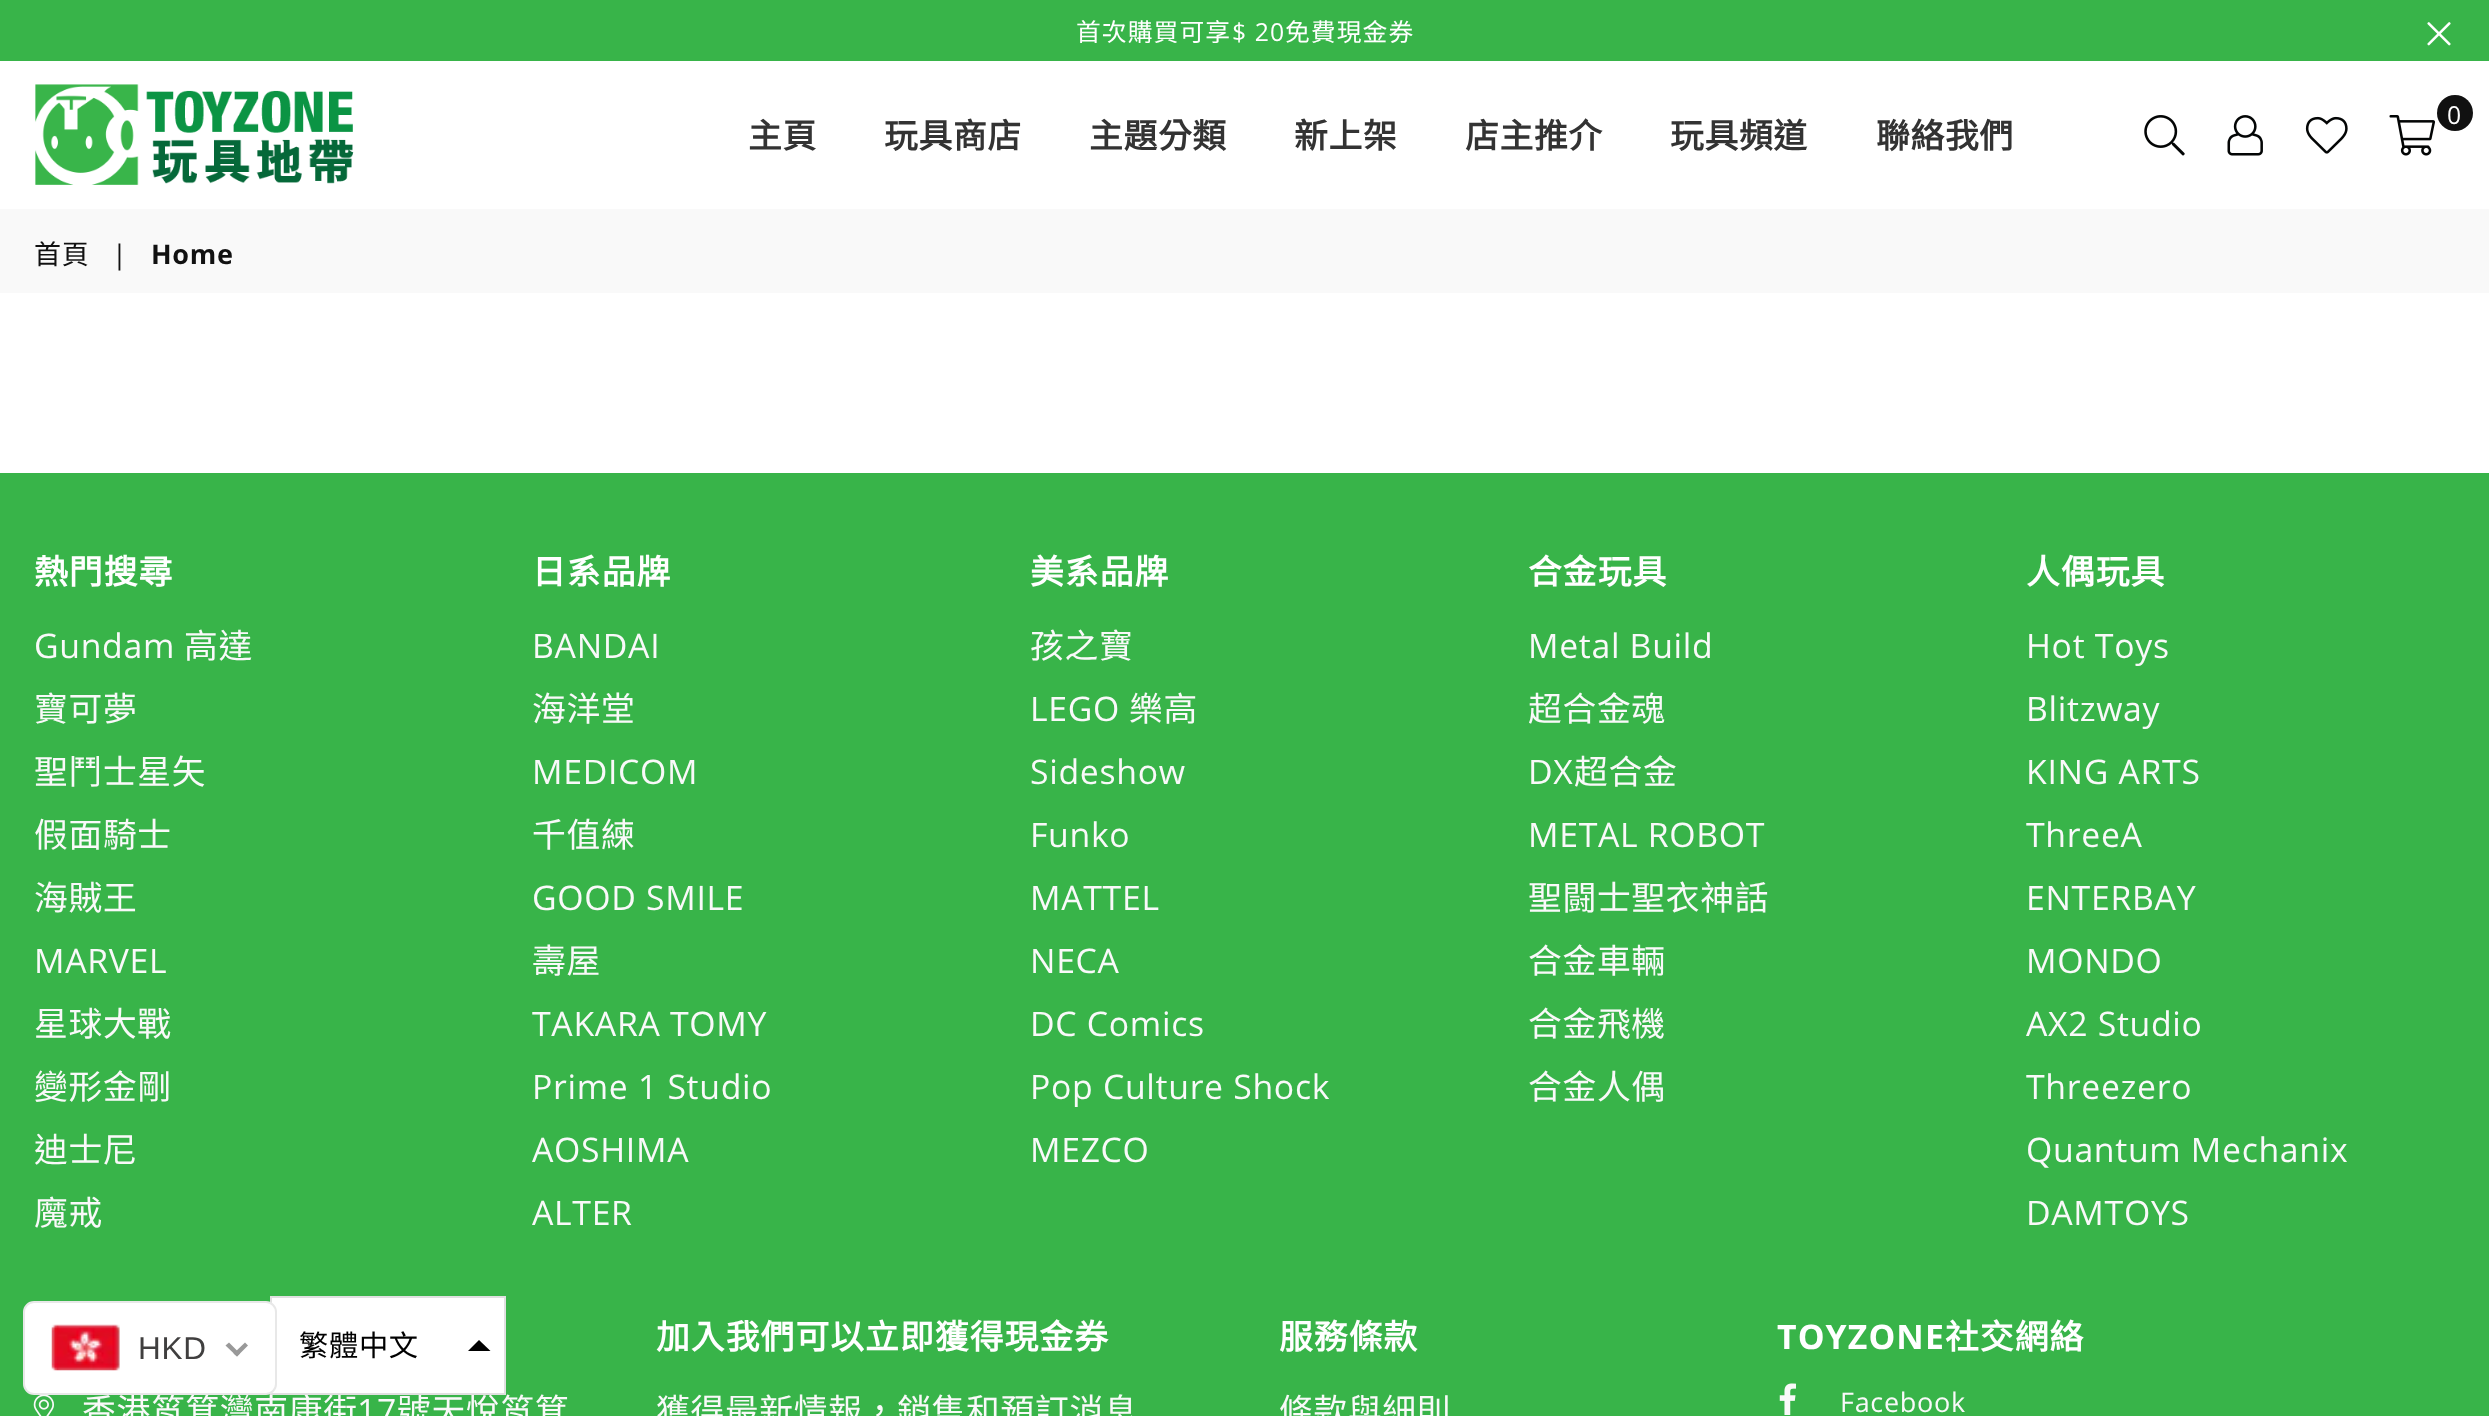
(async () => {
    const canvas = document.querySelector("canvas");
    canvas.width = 2489;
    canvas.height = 1416;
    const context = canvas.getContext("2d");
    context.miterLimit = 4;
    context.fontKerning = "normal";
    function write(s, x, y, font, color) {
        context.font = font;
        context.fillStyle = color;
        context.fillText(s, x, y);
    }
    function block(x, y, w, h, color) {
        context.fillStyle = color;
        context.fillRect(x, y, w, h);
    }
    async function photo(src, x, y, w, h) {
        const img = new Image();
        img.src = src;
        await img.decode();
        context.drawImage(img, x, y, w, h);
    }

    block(0, 0, 2489, 1416, "rgb(255, 255, 255)");
    block(0, 0, 2489, 61, "rgb(56, 180, 73)");
    context.letterSpacing = "1.1px";
    write("首次購買可享", 1076, 41, "24.75px Noto Sans CJK TC", "rgb(255, 255, 255)");
    write("$ 20", 1232, 41, "24.75px Open Sans", "rgb(255, 255, 255)");
    write("免費現金券", 1285, 41, "24.75px Noto Sans CJK TC", "rgb(255, 255, 255)");
    await photo("media/1.png", 2427, 22, 24, 24);
    await photo("media/2.png", 35, 84, 319, 101);
    await photo("media/3.png", 2144, 115, 41, 41);
    await photo("media/4.png", 2227, 115, 36, 41);
    await photo("media/5.png", 2305, 116, 43, 38);
    await photo("media/6.png", 2389, 115, 46, 41);
    context.fillStyle = "rgb(17, 17, 17)";
    context.beginPath();
    context.arc(2455, 113, 18, 0, Math.PI * 2);
    context.fill();
    context.letterSpacing = "0.7px";
    write("0", 2447, 124, "24.75px Open Sans", "rgb(255, 255, 255)");
    write("主頁", 748, 148, "bold 33.75px Noto Sans CJK TC", "rgb(51, 51, 51)");
    write("玩具商店", 884, 148, "bold 33.75px Noto Sans CJK TC", "rgb(51, 51, 51)");
    write("主題分類", 1089, 148, "bold 33.75px Noto Sans CJK TC", "rgb(51, 51, 51)");
    write("新上架", 1294, 148, "bold 33.75px Noto Sans CJK TC", "rgb(51, 51, 51)");
    write("店主推介", 1465, 148, "bold 33.75px Noto Sans CJK TC", "rgb(51, 51, 51)");
    write("玩具頻道", 1670, 148, "bold 33.75px Noto Sans CJK TC", "rgb(51, 51, 51)");
    write("聯絡我們", 1876, 148, "bold 33.75px Noto Sans CJK TC", "rgb(51, 51, 51)");
    block(0, 209, 2489, 84, "rgb(249, 249, 249)");
    write("首頁", 34, 264, "27px Noto Sans CJK TC", "rgb(17, 17, 17)");
    write("|", 112, 264, "27px Open Sans", "rgb(17, 17, 17)");
    write("Home", 151, 264, "bold 27px Open Sans", "rgb(17, 17, 17)");
    block(0, 473, 2489, 943, "rgb(56, 180, 73)");
    context.letterSpacing = "1.1px";
    write("熱門搜尋", 34, 584, "bold 33.75px Noto Sans CJK TC", "rgb(255, 255, 255)");
    context.letterSpacing = "0.7px";
    write("Gundam", 34, 658, "33.75px Open Sans", "rgb(249, 249, 249)");
    write("高達", 184, 658, "33.75px Noto Sans CJK TC", "rgb(249, 249, 249)");
    write("寶可夢", 34, 721, "33.75px Noto Sans CJK TC", "rgb(249, 249, 249)");
    write("聖鬥士星矢", 34, 784, "33.75px Noto Sans CJK TC", "rgb(249, 249, 249)");
    write("假面騎士", 34, 847, "33.75px Noto Sans CJK TC", "rgb(249, 249, 249)");
    write("海賊王", 34, 910, "33.75px Noto Sans CJK TC", "rgb(249, 249, 249)");
    write("MARVEL", 34, 973, "33.75px Open Sans", "rgb(249, 249, 249)");
    write("星球大戰", 34, 1036, "33.75px Noto Sans CJK TC", "rgb(249, 249, 249)");
    write("變形金剛", 34, 1099, "33.75px Noto Sans CJK TC", "rgb(249, 249, 249)");
    write("迪士尼", 34, 1162, "33.75px Noto Sans CJK TC", "rgb(249, 249, 249)");
    write("魔戒", 34, 1225, "33.75px Noto Sans CJK TC", "rgb(249, 249, 249)");
    context.letterSpacing = "1.1px";
    write("日系品牌", 532, 584, "bold 33.75px Noto Sans CJK TC", "rgb(255, 255, 255)");
    context.letterSpacing = "0.7px";
    write("BANDAI", 532, 658, "33.75px Open Sans", "rgb(249, 249, 249)");
    write("海洋堂", 532, 721, "33.75px Noto Sans CJK TC", "rgb(249, 249, 249)");
    write("MEDICOM", 532, 784, "33.75px Open Sans", "rgb(249, 249, 249)");
    write("千值練", 532, 847, "33.75px Noto Sans CJK TC", "rgb(249, 249, 249)");
    write("GOOD SMILE", 532, 910, "33.75px Open Sans", "rgb(249, 249, 249)");
    write("壽屋", 532, 973, "33.75px Noto Sans CJK TC", "rgb(249, 249, 249)");
    write("TAKARA TOMY", 532, 1036, "33.75px Open Sans", "rgb(249, 249, 249)");
    write("Prime 1 Studio", 532, 1099, "33.75px Open Sans", "rgb(249, 249, 249)");
    write("AOSHIMA", 532, 1162, "33.75px Open Sans", "rgb(249, 249, 249)");
    write("ALTER", 532, 1225, "33.75px Open Sans", "rgb(249, 249, 249)");
    context.letterSpacing = "1.1px";
    write("美系品牌", 1030, 584, "bold 33.75px Noto Sans CJK TC", "rgb(255, 255, 255)");
    context.letterSpacing = "0.7px";
    write("孩之寶", 1030, 658, "33.75px Noto Sans CJK TC", "rgb(249, 249, 249)");
    write("LEGO", 1030, 721, "33.75px Open Sans", "rgb(249, 249, 249)");
    write("樂高", 1129, 721, "33.75px Noto Sans CJK TC", "rgb(249, 249, 249)");
    write("Sideshow", 1030, 784, "33.75px Open Sans", "rgb(249, 249, 249)");
    write("Funko", 1030, 847, "33.75px Open Sans", "rgb(249, 249, 249)");
    write("MATTEL", 1030, 910, "33.75px Open Sans", "rgb(249, 249, 249)");
    write("NECA", 1030, 973, "33.75px Open Sans", "rgb(249, 249, 249)");
    write("DC Comics", 1030, 1036, "33.75px Open Sans", "rgb(249, 249, 249)");
    write("Pop Culture Shock", 1030, 1099, "33.75px Open Sans", "rgb(249, 249, 249)");
    write("MEZCO", 1030, 1162, "33.75px Open Sans", "rgb(249, 249, 249)");
    context.letterSpacing = "1.1px";
    write("合金玩具", 1528, 584, "bold 33.75px Noto Sans CJK TC", "rgb(255, 255, 255)");
    context.letterSpacing = "0.7px";
    write("Metal Build", 1528, 658, "33.75px Open Sans", "rgb(249, 249, 249)");
    write("超合金魂", 1528, 721, "33.75px Noto Sans CJK TC", "rgb(249, 249, 249)");
    write("DX", 1528, 784, "33.75px Open Sans", "rgb(249, 249, 249)");
    write("超合金", 1574, 784, "33.75px Noto Sans CJK TC", "rgb(249, 249, 249)");
    write("METAL ROBOT", 1528, 847, "33.75px Open Sans", "rgb(249, 249, 249)");
    write("聖闘士聖衣神話", 1528, 910, "33.75px Noto Sans CJK TC", "rgb(249, 249, 249)");
    write("合金車輛", 1528, 973, "33.75px Noto Sans CJK TC", "rgb(249, 249, 249)");
    write("合金飛機", 1528, 1036, "33.75px Noto Sans CJK TC", "rgb(249, 249, 249)");
    write("合金人偶", 1528, 1099, "33.75px Noto Sans CJK TC", "rgb(249, 249, 249)");
    context.letterSpacing = "1.1px";
    write("人偶玩具", 2026, 584, "bold 33.75px Noto Sans CJK TC", "rgb(255, 255, 255)");
    context.letterSpacing = "0.7px";
    write("Hot Toys", 2026, 658, "33.75px Open Sans", "rgb(249, 249, 249)");
    write("Blitzway", 2026, 721, "33.75px Open Sans", "rgb(249, 249, 249)");
    write("KING ARTS", 2026, 784, "33.75px Open Sans", "rgb(249, 249, 249)");
    write("ThreeA", 2026, 847, "33.75px Open Sans", "rgb(249, 249, 249)");
    write("ENTERBAY", 2026, 910, "33.75px Open Sans", "rgb(249, 249, 249)");
    write("MONDO", 2026, 973, "33.75px Open Sans", "rgb(249, 249, 249)");
    write("AX2 Studio", 2026, 1036, "33.75px Open Sans", "rgb(249, 249, 249)");
    write("Threezero", 2026, 1099, "33.75px Open Sans", "rgb(249, 249, 249)");
    write("Quantum Mechanix", 2026, 1162, "33.75px Open Sans", "rgb(249, 249, 249)");
    write("DAMTOYS", 2026, 1225, "33.75px Open Sans", "rgb(249, 249, 249)");
    await photo("media/7.png", 33, 1395, 21, 21);
    write("香港筲箕灣南康街", 82, 1423, "33.75px Noto Sans CJK TC", "rgb(249, 249, 249)");
    write("17", 357, 1423, "33.75px Open Sans", "rgb(249, 249, 249)");
    write("號天悅筲箕", 397, 1423, "33.75px Noto Sans CJK TC", "rgb(249, 249, 249)");
    context.letterSpacing = "1.1px";
    write("加入我們可以立即獲得現金券", 656, 1349, "bold 33.75px Noto Sans CJK TC", "rgb(255, 255, 255)");
    context.letterSpacing = "0.7px";
    write("獲得最新情報，銷售和預訂消息", 656, 1423, "33.75px Noto Sans CJK TC", "rgb(249, 249, 249)");
    context.letterSpacing = "1.1px";
    write("服務條款", 1279, 1349, "bold 33.75px Noto Sans CJK TC", "rgb(255, 255, 255)");
    context.letterSpacing = "0.7px";
    write("條款與細則", 1279, 1423, "33.75px Noto Sans CJK TC", "rgb(249, 249, 249)");
    context.letterSpacing = "1.1px";
    write("TOYZONE", 1777, 1349, "bold 33.75px Open Sans", "rgb(255, 255, 255)");
    write("社交網絡", 1945, 1349, "bold 33.75px Noto Sans CJK TC", "rgb(255, 255, 255)");
    await photo("media/8.png", 1779, 1383, 17, 32);
    context.letterSpacing = "0.7px";
    write("Facebook", 1840, 1412, "27px Open Sans", "rgb(249, 249, 249)");
    context.strokeStyle = "rgb(224, 224, 224)";
    context.lineWidth = 2;
    context.strokeRect(271, 1297, 234, 97);
    block(272, 1298, 232, 95, "rgb(255, 255, 255)");
    context.beginPath();
    context.roundRect(24, 1302, 252, 92, 10);
    context.fill();
    context.strokeStyle = "rgb(232, 232, 232)";
    context.stroke();
    await photo("media/9.png", 51, 1324, 69, 47);
    write("HKD", 138, 1359, "31.5px Liberation Sans", "rgb(64, 63, 63)");
    context.fillStyle = "rgb(153, 153, 153)";
    context.beginPath();
    context.moveTo(245, 1342.5);
    context.lineTo(248, 1345.5);
    context.lineTo(237, 1356.5);
    context.lineTo(233.5, 1353.5);
    context.closePath();
    context.fill();
    context.beginPath();
    context.moveTo(229, 1342.5);
    context.lineTo(240, 1353.5);
    context.lineTo(237, 1356.5);
    context.lineTo(225.5, 1345.5);
    context.closePath();
    context.fill();
    write("繁體中文", 299, 1356, "29.25px Noto Sans CJK TC", "rgb(0, 0, 0)");
    context.beginPath();
    context.moveTo(468, 1351);
    context.lineTo(479, 1340);
    context.lineTo(490.5, 1351);
    context.closePath();
    context.fill("evenodd");
})();
